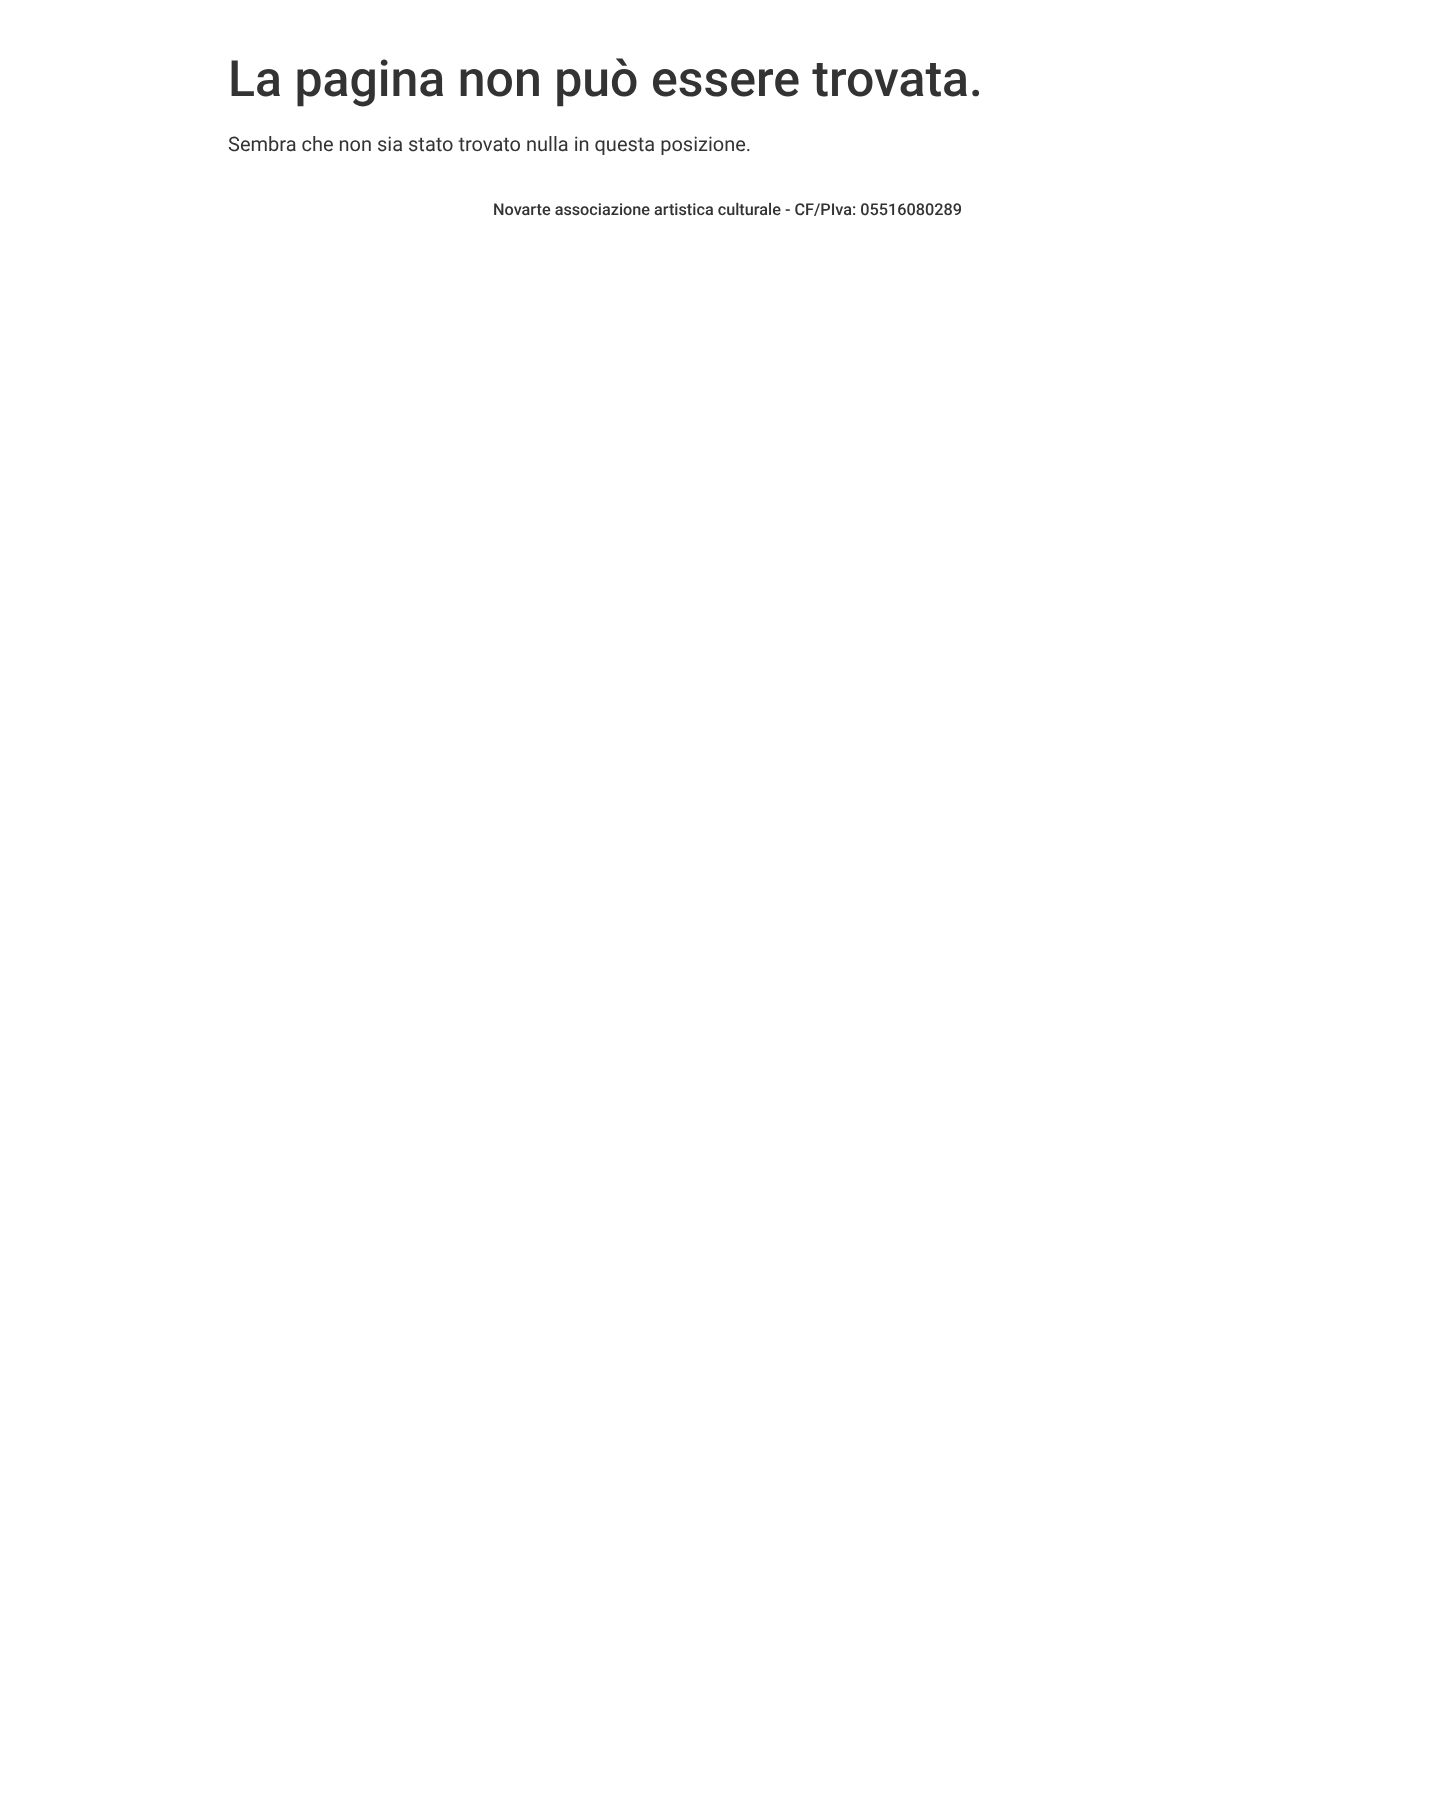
(async () => {
    const canvas = document.querySelector("canvas");
    canvas.width = 1454;
    canvas.height = 1811;
    const context = canvas.getContext("2d");
    context.miterLimit = 4;
    context.fontKerning = "normal";
    function write(s, x, y, font, color) {
        context.font = font;
        context.fillStyle = color;
        context.fillText(s, x, y);
    }
    function block(x, y, w, h, color) {
        context.fillStyle = color;
        context.fillRect(x, y, w, h);
    }

    block(0, 0, 1454, 1811, "rgb(255, 255, 255)");
    write("La pagina non può essere trovata.", 228, 96, "500 50px Roboto", "rgb(51, 51, 51)");
    write("Sembra che non sia stato trovato nulla in questa posizione.", 228, 151, "20px Roboto", "rgb(51, 51, 51)");
    write("Novarte associazione artistica culturale - CF/PIva: 05516080289", 493, 215, "500 16.25px Roboto", "rgb(51, 51, 51)");
})();
